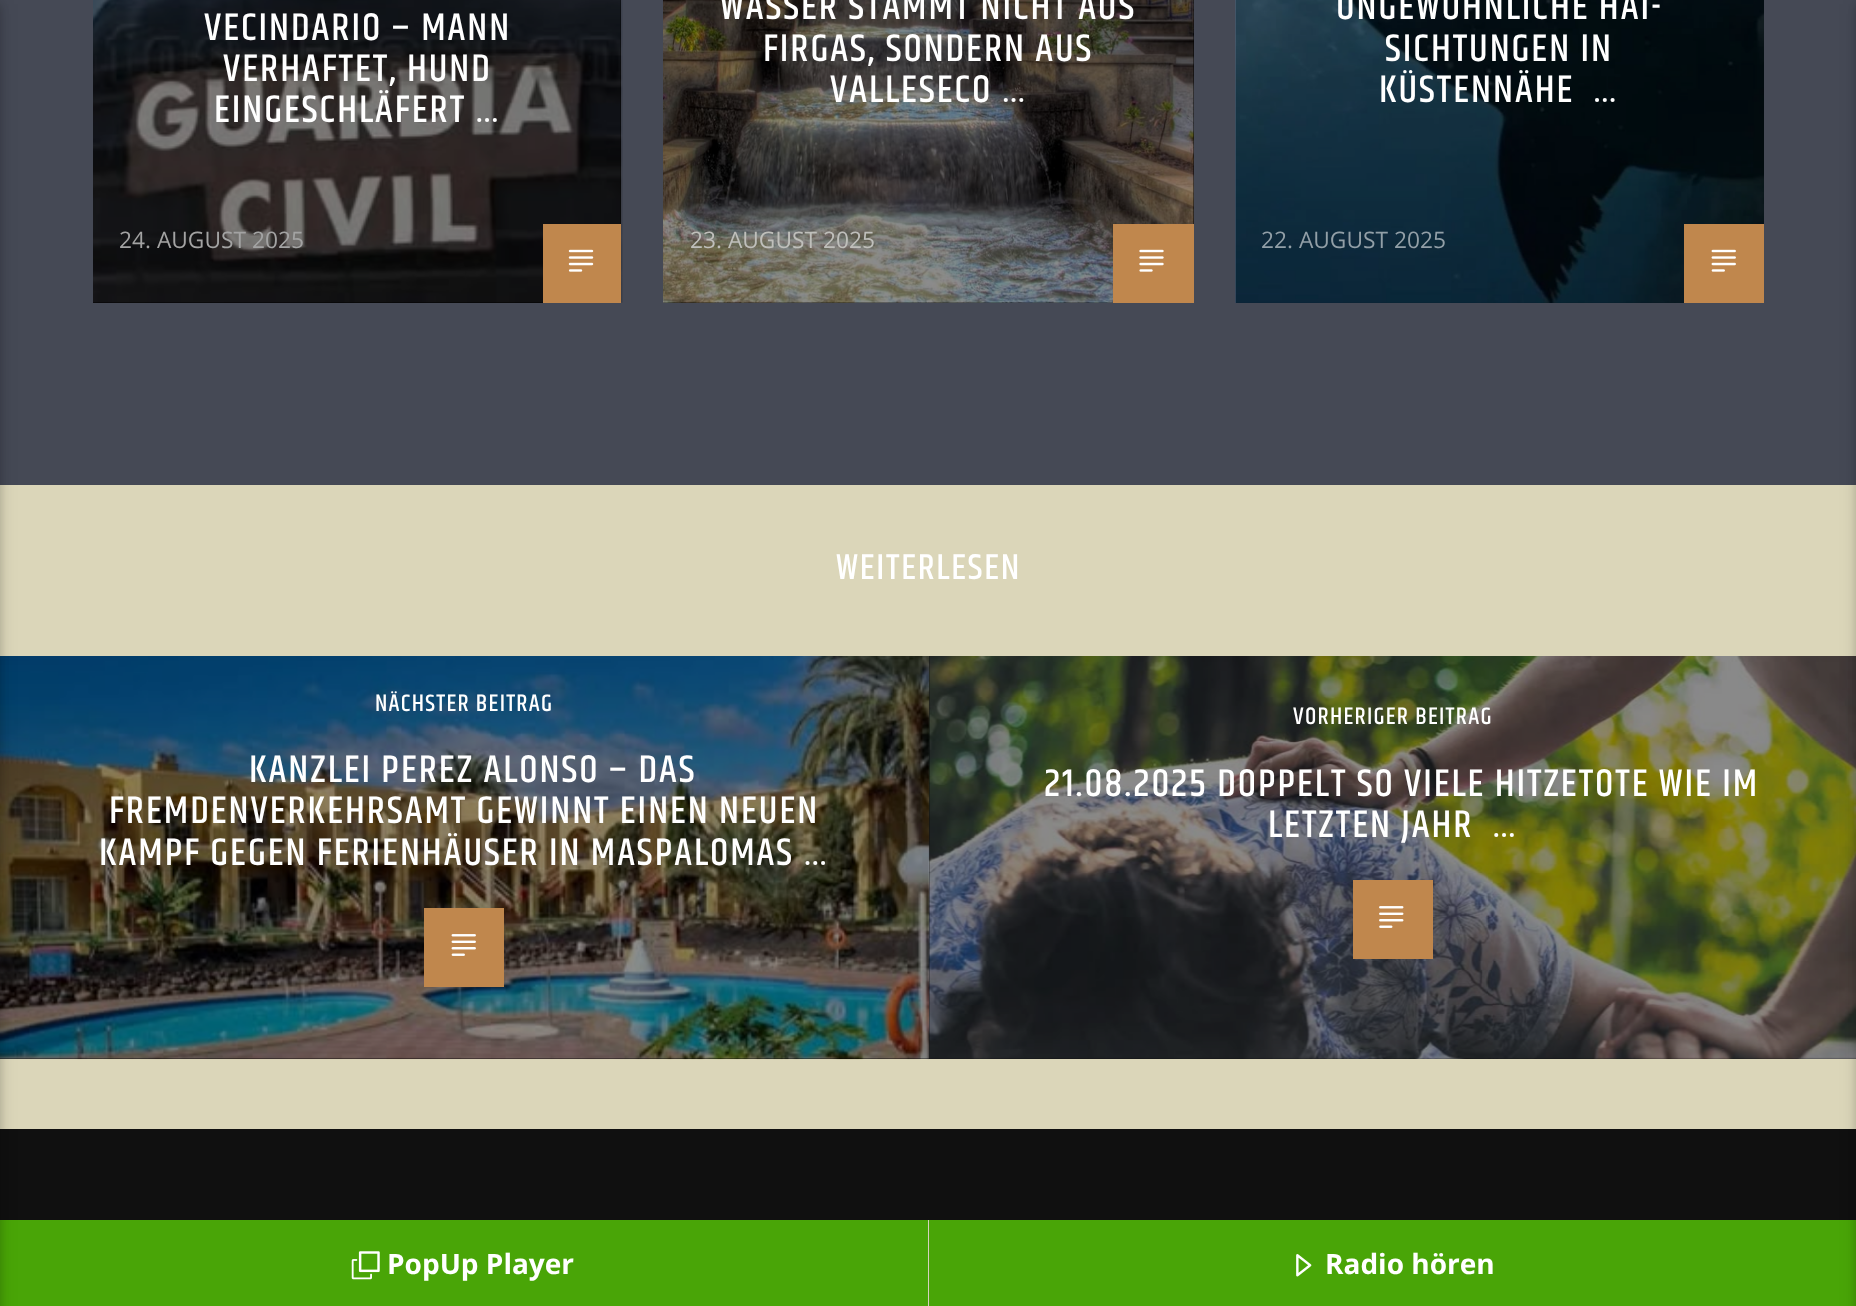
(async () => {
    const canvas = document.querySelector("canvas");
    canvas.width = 1856;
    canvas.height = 1306;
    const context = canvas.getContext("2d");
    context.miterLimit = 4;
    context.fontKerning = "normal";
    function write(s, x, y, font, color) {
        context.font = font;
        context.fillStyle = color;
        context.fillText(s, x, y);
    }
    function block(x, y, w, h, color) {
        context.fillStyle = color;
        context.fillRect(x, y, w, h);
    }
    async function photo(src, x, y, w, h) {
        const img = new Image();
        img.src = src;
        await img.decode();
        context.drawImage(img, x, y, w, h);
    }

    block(0, 0, 1856, 1306, "rgb(69, 73, 85)");
    block(0, 485, 1856, 644, "rgb(219, 214, 185)");
    block(0, 656, 1856, 403, "rgb(0, 0, 0)");
    await photo("media/7.png", 0, 656, 930, 404);
    block(0, 1129, 1856, 91, "rgb(16, 16, 16)");
    block(0, 1220, 928, 86, "rgb(73, 165, 7)");
    context.fillStyle = "rgba(0, 0, 0, 0.12)";
    context.filter = "blur(9px)";
    context.beginPath();
    context.rect(-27, 4, 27, 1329);
    context.fill();
    context.filter = "none";
    context.fillStyle = "rgba(0, 0, 0, 0.16)";
    context.filter = "blur(4.5px)";
    context.beginPath();
    context.rect(-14, 4, 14, 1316);
    context.fill();
    context.filter = "none";
    block(93, 0, 528, 303, "rgb(0, 0, 0)");
    await photo("media/1.png", 93, 0, 530, 303);
    context.letterSpacing = "1.95px";
    write("VECINDARIO – MANN", 204, 40, "500 39.25px Khand", "rgb(255, 255, 255)");
    write("VERHAFTET, HUND", 223, 81, "500 39.25px Khand", "rgb(255, 255, 255)");
    write("EINGESCHLÄFERT …", 214, 122, "500 39.25px Khand", "rgb(255, 255, 255)");
    context.letterSpacing = "0px";
    write("24. AUGUST 2025", 119, 248, "22.75px Open Sans", "rgb(163, 163, 163)");
    block(543, 224, 78, 79, "rgb(192, 135, 77)");
    await photo("media/2.png", 568, 249, 26, 23);
    block(663, 0, 531, 303, "rgb(0, 0, 0)");
    await photo("media/3.png", 663, 0, 531, 303);
    context.letterSpacing = "1.95px";
    write("WASSER STAMMT NICHT AUS", 720, 19, "500 39.25px Khand", "rgb(255, 255, 255)");
    write("FIRGAS, SONDERN AUS", 763, 61, "500 39.25px Khand", "rgb(255, 255, 255)");
    write("VALLESECO …", 830, 102, "500 39.25px Khand", "rgb(255, 255, 255)");
    context.letterSpacing = "0px";
    write("23. AUGUST 2025", 690, 248, "22.75px Open Sans", "rgb(191, 191, 187)");
    block(1113, 224, 81, 79, "rgb(192, 135, 77)");
    await photo("media/4.png", 1139, 249, 25, 23);
    block(1236, 0, 528, 303, "rgb(0, 0, 0)");
    await photo("media/5.png", 1235, 0, 529, 303);
    context.letterSpacing = "1.95px";
    write("UNGEWÖHNLICHE HAI-", 1336, 19, "500 39.25px Khand", "rgb(255, 255, 255)");
    write("SICHTUNGEN IN", 1385, 61, "500 39.25px Khand", "rgb(255, 255, 255)");
    write("KÜSTENNÄHE  …", 1379, 102, "500 39.25px Khand", "rgb(255, 255, 255)");
    context.letterSpacing = "0px";
    write("22. AUGUST 2025", 1261, 248, "22.75px Open Sans", "rgb(146, 159, 167)");
    block(1684, 224, 80, 79, "rgb(192, 135, 77)");
    await photo("media/6.png", 1711, 249, 25, 23);
    context.letterSpacing = "1.75px";
    write("WEITERLESEN", 836, 579, "500 36.5px Khand", "rgb(255, 255, 255)");
    context.letterSpacing = "1.25px";
    write("NÄCHSTER BEITRAG", 375, 711, "500 24.25px Khand", "rgb(255, 255, 255)");
    context.letterSpacing = "1.95px";
    write("KANZLEI PEREZ ALONSO – DAS", 249, 782, "500 39.25px Khand", "rgb(255, 255, 255)");
    write("FREMDENVERKEHRSAMT GEWINNT EINEN NEUEN", 109, 823, "500 39.25px Khand", "rgb(255, 255, 255)");
    write("KAMPF GEGEN FERIENHÄUSER IN MASPALOMAS …", 99, 865, "500 39.25px Khand", "rgb(255, 255, 255)");
    block(424, 908, 80, 79, "rgb(192, 135, 77)");
    await photo("media/8.png", 451, 934, 25, 22);
    await photo("media/9.png", 928, 656, 928, 403);
    context.letterSpacing = "1.25px";
    write("VORHERIGER BEITRAG", 1293, 724, "500 24.25px Khand", "rgb(255, 255, 255)");
    context.letterSpacing = "1.95px";
    write("21.08.2025 DOPPELT SO VIELE HITZETOTE WIE IM", 1044, 796, "500 39.25px Khand", "rgb(255, 255, 255)");
    write("LETZTEN JAHR  …", 1268, 837, "500 39.25px Khand", "rgb(255, 255, 255)");
    block(1353, 880, 80, 79, "rgb(192, 135, 77)");
    await photo("media/10.png", 1379, 906, 25, 22);
    block(929, 1220, 927, 86, "rgb(73, 165, 7)");
    context.fillStyle = "rgba(0, 0, 0, 0.12)";
    context.filter = "blur(9px)";
    context.beginPath();
    context.rect(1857, 4, 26, 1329);
    context.fill();
    context.filter = "none";
    context.fillStyle = "rgba(0, 0, 0, 0.16)";
    context.filter = "blur(4.5px)";
    context.beginPath();
    context.rect(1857, 4, 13, 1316);
    context.fill();
    context.filter = "none";
    block(928, 1220, 1, 86, "rgb(213, 210, 190)");
    await photo("media/11.png", 351, 1251, 29, 29);
    context.letterSpacing = "0px";
    write("PopUp Player", 387, 1274, "bold 28px Open Sans", "rgb(255, 255, 255)");
    await photo("media/12.png", 1296, 1254, 16, 23);
    write("Radio hören", 1325, 1274, "bold 28px Open Sans", "rgb(255, 255, 255)");
})();
